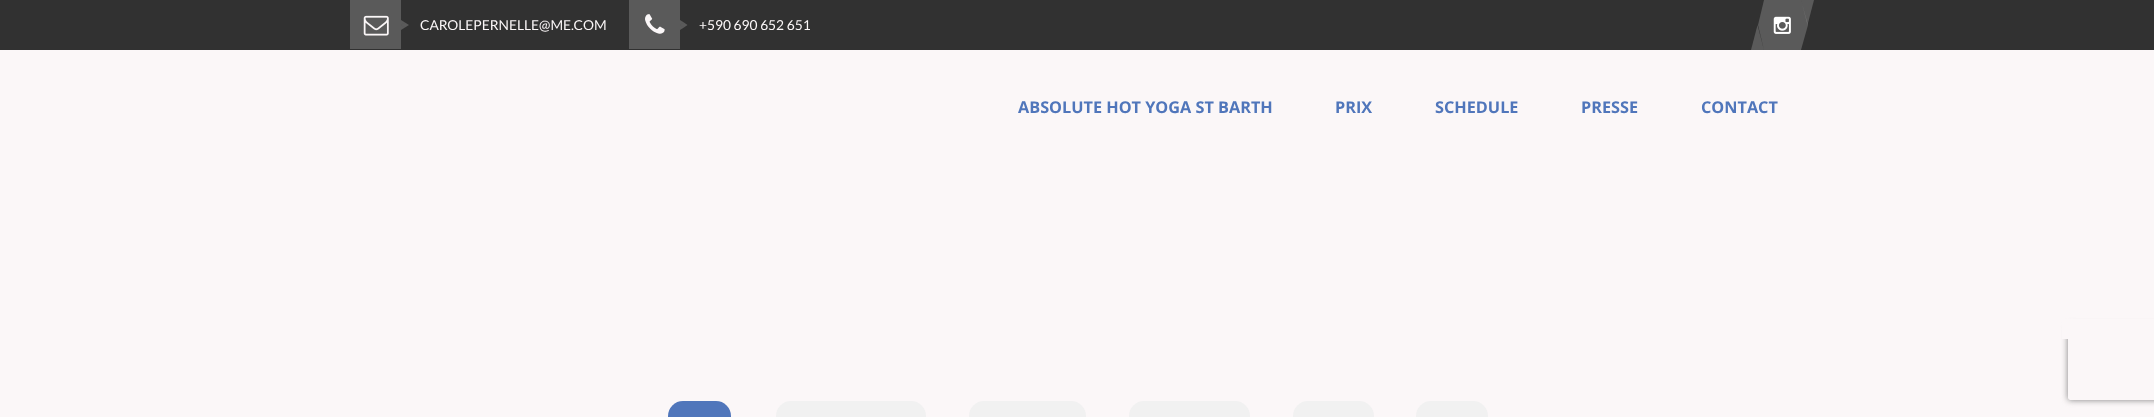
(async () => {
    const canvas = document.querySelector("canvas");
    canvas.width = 2154;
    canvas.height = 417;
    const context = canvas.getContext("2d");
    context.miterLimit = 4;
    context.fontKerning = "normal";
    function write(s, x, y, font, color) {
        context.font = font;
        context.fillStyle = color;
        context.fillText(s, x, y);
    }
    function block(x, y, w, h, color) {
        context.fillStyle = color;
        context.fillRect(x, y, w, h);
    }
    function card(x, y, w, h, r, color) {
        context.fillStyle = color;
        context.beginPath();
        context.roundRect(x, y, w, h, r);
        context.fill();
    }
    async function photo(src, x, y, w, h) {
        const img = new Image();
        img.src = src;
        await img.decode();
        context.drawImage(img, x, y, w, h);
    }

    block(0, 0, 2154, 417, "rgb(251, 247, 248)");
    context.save();
    context.beginPath();
    context.moveTo(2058, 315);
    context.lineTo(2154, 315);
    context.lineTo(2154, 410);
    context.lineTo(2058, 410);
    context.closePath();
    context.moveTo(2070.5, 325);
    context.lineTo(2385.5, 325);
    context.bezierCurveTo(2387, 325, 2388, 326, 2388, 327.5);
    context.lineTo(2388, 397.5);
    context.bezierCurveTo(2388, 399, 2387, 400, 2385.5, 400);
    context.lineTo(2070.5, 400);
    context.bezierCurveTo(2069, 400, 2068, 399, 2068, 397.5);
    context.lineTo(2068, 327.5);
    context.bezierCurveTo(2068, 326, 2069, 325, 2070.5, 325);
    context.closePath();
    context.clip("evenodd");
    context.fillStyle = "rgb(128, 128, 128)";
    context.filter = "blur(3px)";
    context.beginPath();
    context.roundRect(2068, 325, 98, 75, 2.5);
    context.fill();
    context.filter = "none";
    context.restore();
    block(2062, 319, 92, 20, "rgb(251, 247, 248)");
    block(0, 0, 2154, 50, "rgb(49, 49, 49)");
    block(350, 0, 51, 49, "rgb(90, 90, 90)");
    await photo("media/1.png", 363, 15, 26, 21);
    context.beginPath();
    context.moveTo(409, 25);
    context.lineTo(401, 25);
    context.lineTo(405, 22.5);
    context.closePath();
    context.fill();
    context.fillStyle = "rgba(255, 255, 255, 0.2)";
    context.beginPath();
    context.moveTo(401, 25);
    context.lineTo(401, 20);
    context.lineTo(405, 22.5);
    context.closePath();
    context.fill();
    context.fillStyle = "rgb(90, 90, 90)";
    context.beginPath();
    context.moveTo(401, 25);
    context.lineTo(409, 25);
    context.lineTo(405, 27.5);
    context.closePath();
    context.fill();
    context.fillStyle = "rgba(255, 255, 255, 0.2)";
    context.beginPath();
    context.moveTo(401, 30);
    context.lineTo(401, 25);
    context.lineTo(405, 27.5);
    context.closePath();
    context.fill();
    write("CAROLEPERNELLE@ME.COM", 420, 30, "13.75px Lato", "rgb(251, 247, 248)");
    block(629, 0, 51, 49, "rgb(90, 90, 90)");
    await photo("media/2.png", 645, 14, 20, 20);
    context.beginPath();
    context.moveTo(687.5, 25);
    context.lineTo(680, 25);
    context.lineTo(684, 22.5);
    context.closePath();
    context.fill();
    context.fillStyle = "rgba(255, 255, 255, 0.2)";
    context.beginPath();
    context.moveTo(680, 25);
    context.lineTo(680, 20);
    context.lineTo(684, 22.5);
    context.closePath();
    context.fill();
    context.fillStyle = "rgb(90, 90, 90)";
    context.beginPath();
    context.moveTo(680, 25);
    context.lineTo(687.5, 25);
    context.lineTo(684, 27.5);
    context.closePath();
    context.fill();
    context.fillStyle = "rgba(255, 255, 255, 0.2)";
    context.beginPath();
    context.moveTo(680, 30);
    context.lineTo(680, 25);
    context.lineTo(684, 27.5);
    context.closePath();
    context.fill();
    write("+590 690 652 651", 699, 30, "13.75px Lato", "rgb(251, 247, 248)");
    block(1764, 0, 37, 50, "rgb(90, 90, 90)");
    context.beginPath();
    context.moveTo(1764, 0);
    context.lineTo(1764, 50);
    context.lineTo(1758, 25);
    context.closePath();
    context.fill();
    context.fillStyle = "rgba(255, 255, 255, 0.2)";
    context.beginPath();
    context.moveTo(1764, 50);
    context.lineTo(1751, 50);
    context.lineTo(1757.5, 25);
    context.closePath();
    context.fill();
    await photo("media/3.png", 1773, 16, 18, 18);
    context.fillStyle = "rgb(90, 90, 90)";
    context.beginPath();
    context.moveTo(1801, 0);
    context.lineTo(1814, 0);
    context.lineTo(1807.5, 25);
    context.closePath();
    context.fill();
    context.fillStyle = "rgba(255, 255, 255, 0.2)";
    context.beginPath();
    context.moveTo(1801, 50);
    context.lineTo(1801, 0);
    context.lineTo(1808, 25);
    context.closePath();
    context.fill();
    write("ABSOLUTE HOT YOGA ST BARTH", 1018, 113, "bold 16.25px Open Sans", "rgb(80, 118, 187)");
    write("PRIX", 1335, 113, "bold 16.25px Open Sans", "rgb(80, 118, 187)");
    write("SCHEDULE", 1435, 113, "bold 16.25px Open Sans", "rgb(80, 118, 187)");
    write("PRESSE", 1581, 113, "bold 16.25px Open Sans", "rgb(80, 118, 187)");
    write("CONTACT", 1701, 113, "bold 16.25px Open Sans", "rgb(80, 118, 187)");
    card(668, 401, 63, 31, 15, "rgb(80, 118, 187)");
    card(776, 401, 150, 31, 15, "rgb(241, 241, 241)");
    card(969, 401, 117, 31, 15, "rgb(241, 241, 241)");
    card(1129, 401, 121, 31, 15, "rgb(241, 241, 241)");
    card(1293, 401, 81, 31, 15, "rgb(241, 241, 241)");
    card(1416, 401, 72, 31, 15, "rgb(241, 241, 241)");
})();
